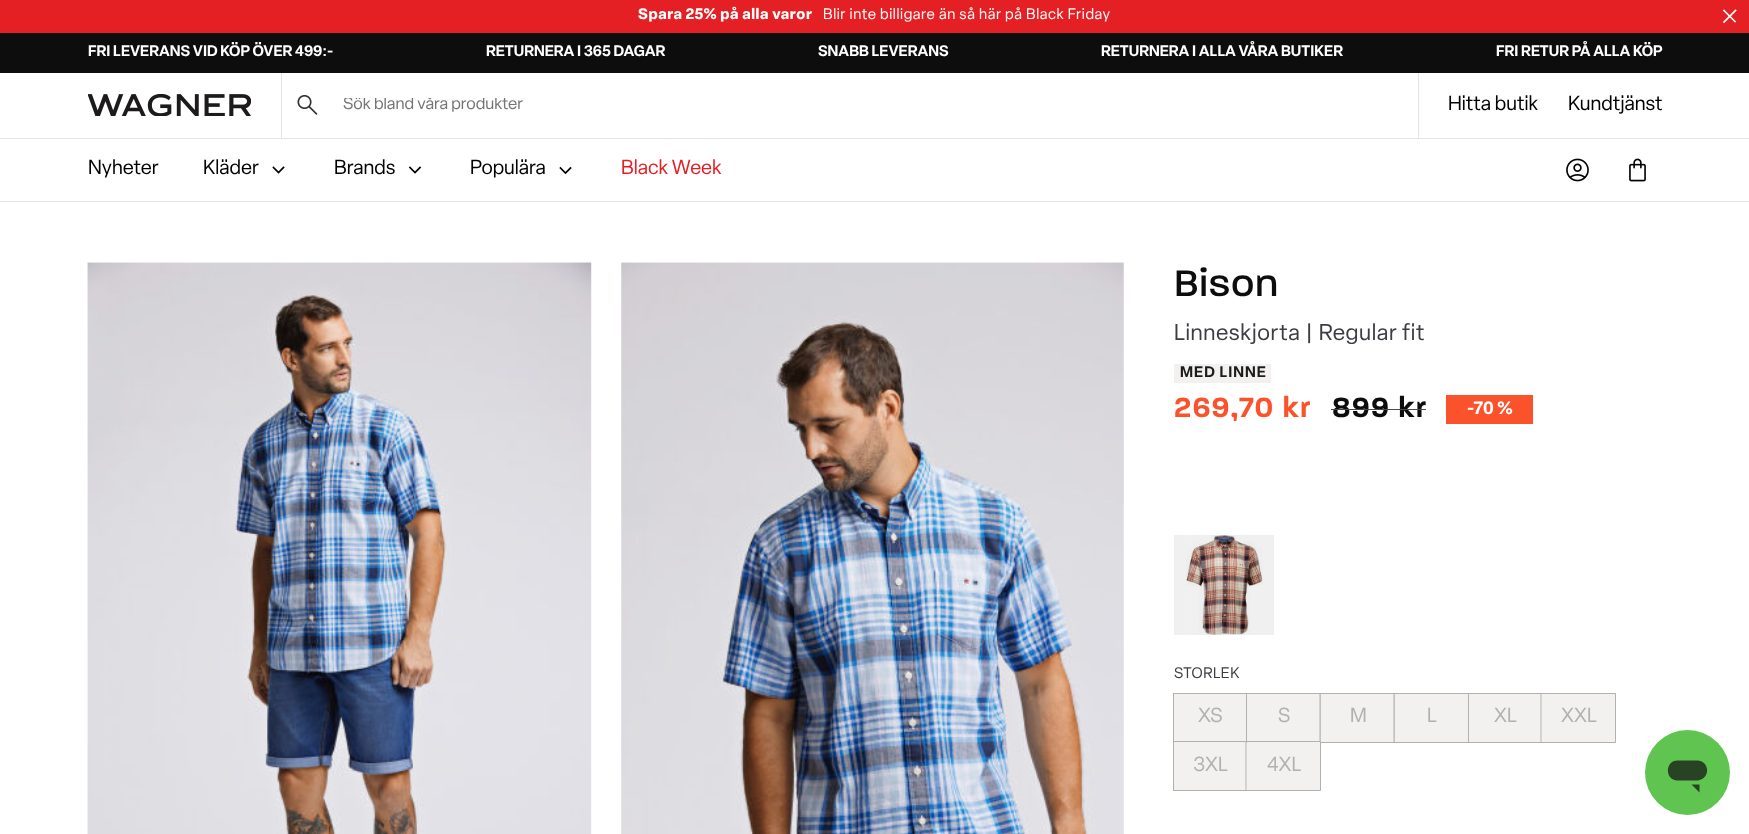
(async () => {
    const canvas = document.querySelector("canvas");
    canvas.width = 1749;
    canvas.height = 834;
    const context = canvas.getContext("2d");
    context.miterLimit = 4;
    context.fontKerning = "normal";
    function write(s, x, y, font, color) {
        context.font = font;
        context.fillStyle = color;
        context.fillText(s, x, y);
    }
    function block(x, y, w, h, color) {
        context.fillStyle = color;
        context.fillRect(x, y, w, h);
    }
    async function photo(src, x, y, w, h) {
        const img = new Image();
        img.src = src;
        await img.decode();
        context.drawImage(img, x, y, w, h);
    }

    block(0, 0, 1749, 834, "rgb(255, 255, 255)");
    block(1174, 535, 100, 100, "rgb(240, 240, 240)");
    block(0, 0, 1749, 33, "rgb(228, 32, 36)");
    context.letterSpacing = "0.6px";
    write("Spara 25% på alla varor", 638, 19, "bold 15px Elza", "rgb(255, 255, 255)");
    write("Blir inte billigare än så här på Black Friday", 823, 19, "15px Elza", "rgb(255, 255, 255)");
    context.beginPath();
    context.moveTo(1724, 10.5);
    context.lineTo(1735, 21.5);
    context.moveTo(1724, 22);
    context.lineTo(1735.5, 10.5);
    context.strokeStyle = "rgb(255, 255, 255)";
    context.lineWidth = 1.7;
    context.lineCap = "square";
    context.stroke();
    block(0, 33, 1749, 40, "rgb(13, 13, 13)");
    context.letterSpacing = "0px";
    write("FRI LEVERANS VID KÖP ÖVER 499:-", 88, 56, "600 15px Elza", "rgb(255, 255, 255)");
    write("RETURNERA I 365 DAGAR", 486, 56, "600 15px Elza", "rgb(255, 255, 255)");
    write("SNABB LEVERANS", 818, 56, "600 15px Elza", "rgb(255, 255, 255)");
    write("RETURNERA I ALLA VÅRA BUTIKER", 1101, 56, "600 15px Elza", "rgb(255, 255, 255)");
    write("FRI RETUR PÅ ALLA KÖP", 1496, 56, "600 15px Elza", "rgb(255, 255, 255)");
    await photo("media/1.png", 88, 94, 163, 22);
    block(1418, 73, 1, 65, "rgb(229, 228, 226)");
    block(281, 73, 1, 65, "rgb(229, 228, 226)");
    await photo("media/2.png", 297, 95, 21, 20);
    context.save();
    context.beginPath();
    context.rect(343, 98, 1067, 16);
    context.clip();
    write("Sök bland våra produkter", 343, 109, "16.75px Elza", "rgb(117, 117, 117)");
    context.restore();
    write("Hitta butik", 1448, 110, "20px Elza", "rgb(0, 0, 0)");
    write("Kundtjänst", 1568, 110, "20px Elza", "rgb(0, 0, 0)");
    block(0, 138, 1749, 1, "rgb(229, 228, 226)");
    write("Nyheter", 88, 174, "20px Elza", "rgb(0, 0, 0)");
    write("Kläder", 203, 174, "20px Elza", "rgb(0, 0, 0)");
    context.beginPath();
    context.moveTo(273.5, 167.5);
    context.lineTo(278.5, 172.5);
    context.lineTo(283.5, 167.5);
    context.strokeStyle = "rgb(0, 0, 0)";
    context.stroke();
    write("Brands", 334, 174, "20px Elza", "rgb(0, 0, 0)");
    context.beginPath();
    context.moveTo(410, 167.5);
    context.lineTo(415, 172.5);
    context.lineTo(420, 167.5);
    context.stroke();
    write("Populära", 470, 174, "20px Elza", "rgb(0, 0, 0)");
    context.beginPath();
    context.moveTo(560.5, 168);
    context.lineTo(565.5, 173);
    context.lineTo(570.5, 168);
    context.stroke();
    write("Black Week", 621, 174, "20px Elza", "rgb(228, 32, 36)");
    await photo("media/3.png", 1566, 158, 23, 24);
    await photo("media/4.png", 1629, 158, 17, 24);
    block(0, 201, 1749, 1, "rgb(229, 228, 226)");
    await photo("media/5.png", 87, 262, 505, 572);
    await photo("media/6.png", 621, 262, 503, 572);
    context.letterSpacing = "1.25px";
    write("Bison", 1174, 296, "500 40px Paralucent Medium", "rgb(13, 13, 13)");
    context.letterSpacing = "0.6px";
    write("Linneskjorta | Regular fit", 1174, 340, "22.5px Elza", "rgb(60, 61, 66)");
    block(1174, 364, 97, 19, "rgb(242, 241, 240)");
    context.letterSpacing = "1px";
    write("MED LINNE", 1180, 377, "600 15px Elza", "rgb(28, 26, 26)");
    context.letterSpacing = "1.25px";
    write("269,70 kr", 1174, 417, "600 30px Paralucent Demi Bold", "rgb(250, 83, 44)");
    write("899 kr", 1332, 417, "600 30px Paralucent Demi Bold", "rgb(13, 13, 13)");
    block(1331, 409, 95, 1, "rgb(77, 73, 75)");
    block(1446, 395, 87, 29, "rgb(250, 83, 44)");
    context.letterSpacing = "0.25px";
    write("-70 %", 1467, 414, "600 17.5px Elza", "rgb(255, 255, 255)");
    await photo("media/7.png", 1186, 535, 77, 100);
    context.letterSpacing = "0.6px";
    write("STORLEK", 1174, 678, "15px Elza", "rgb(60, 61, 66)");
    block(1174, 694, 72, 47, "rgb(242, 241, 240)");
    context.strokeStyle = "rgb(178, 177, 174)";
    context.lineWidth = 1;
    context.strokeRect(1173.5, 693.5, 74, 49);
    context.letterSpacing = "0px";
    write("XS", 1198, 722, "20px Elza", "rgb(178, 177, 174)");
    block(1247, 694, 73, 47, "rgb(242, 241, 240)");
    context.strokeRect(1246.5, 693.5, 74, 49);
    write("S", 1278, 722, "20px Elza", "rgb(178, 177, 174)");
    context.fillStyle = "rgb(242, 241, 240)";
    context.beginPath();
    context.rect(1320.5, 693.5, 74, 49);
    context.fill();
    context.stroke();
    write("M", 1350, 722, "20px Elza", "rgb(178, 177, 174)");
    context.fillStyle = "rgb(242, 241, 240)";
    context.beginPath();
    context.rect(1394.5, 693.5, 74, 49);
    context.fill();
    context.stroke();
    write("L", 1427, 722, "20px Elza", "rgb(178, 177, 174)");
    block(1469, 694, 72, 48, "rgb(242, 241, 240)");
    context.strokeRect(1468.5, 693.5, 74, 49);
    write("XL", 1494, 722, "20px Elza", "rgb(178, 177, 174)");
    context.fillStyle = "rgb(242, 241, 240)";
    context.beginPath();
    context.rect(1541.5, 693.5, 74, 49);
    context.fill();
    context.stroke();
    write("XXL", 1561, 722, "20px Elza", "rgb(178, 177, 174)");
    block(1174, 742, 72, 48, "rgb(242, 241, 240)");
    context.strokeRect(1173.5, 741.5, 74, 49);
    write("3XL", 1193, 771, "20px Elza", "rgb(178, 177, 174)");
    context.fillStyle = "rgb(242, 241, 240)";
    context.beginPath();
    context.rect(1246.5, 741.5, 74, 49);
    context.fill();
    context.stroke();
    write("4XL", 1267, 771, "20px Elza", "rgb(178, 177, 174)");
    context.fillStyle = "rgb(95, 197, 80)";
    context.beginPath();
    context.arc(1687.5, 772.5, 42.5, 0, Math.PI * 2);
    context.fill();
    context.fillStyle = "rgb(40, 66, 36)";
    context.beginPath();
    context.moveTo(1691.5, 784.5);
    context.lineTo(1699.5, 792.5);
    context.lineTo(1699.5, 784.5);
    context.closePath();
    context.moveTo(1677.5, 760.5);
    context.bezierCurveTo(1665, 760.5, 1664.5, 780, 1677.5, 780.5);
    context.lineTo(1691, 780.5);
    context.bezierCurveTo(1694, 780.5, 1698, 781, 1701, 779.5);
    context.bezierCurveTo(1711, 775.5, 1708, 760.5, 1697.5, 760.5);
    context.closePath();
    context.fill();
})();
